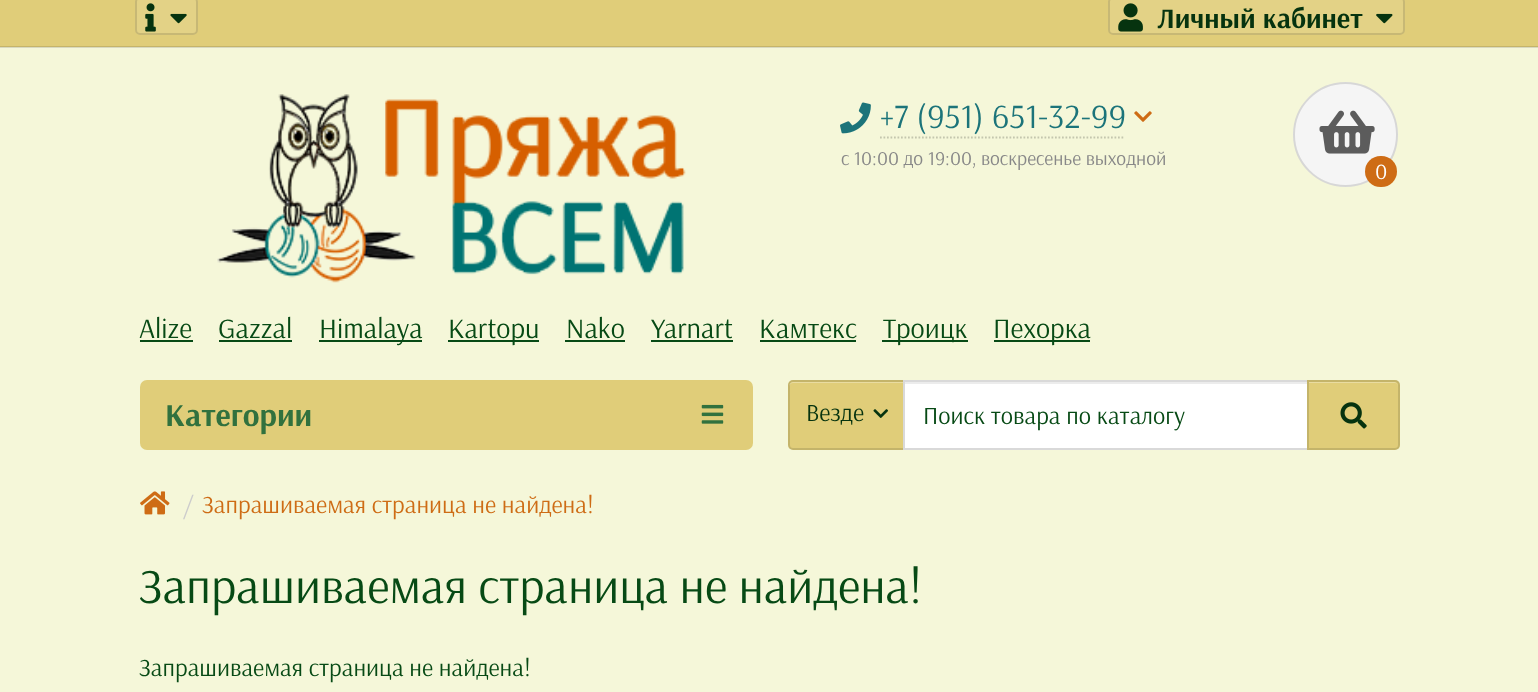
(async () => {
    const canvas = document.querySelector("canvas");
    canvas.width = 1538;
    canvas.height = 692;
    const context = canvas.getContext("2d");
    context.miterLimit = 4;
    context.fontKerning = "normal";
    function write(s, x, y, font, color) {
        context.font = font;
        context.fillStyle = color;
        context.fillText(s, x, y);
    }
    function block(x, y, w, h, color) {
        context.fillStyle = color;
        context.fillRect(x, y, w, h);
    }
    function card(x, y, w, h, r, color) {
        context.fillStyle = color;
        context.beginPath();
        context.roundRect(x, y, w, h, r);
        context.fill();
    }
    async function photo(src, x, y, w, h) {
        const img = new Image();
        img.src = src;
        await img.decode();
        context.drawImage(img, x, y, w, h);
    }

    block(0, 0, 1538, 692, "rgb(245, 247, 217)");
    block(0, 47, 1538, 1, "rgb(216, 217, 191)");
    block(0, 0, 1538, 46, "rgb(224, 205, 121)");
    block(0, 46, 1538, 1, "rgb(197, 180, 106)");
    card(135, -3, 63, 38, 5, "rgb(227, 210, 134)");
    context.beginPath();
    context.roundRect(136, -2, 61, 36, 4);
    context.strokeStyle = "rgba(0, 0, 0, 0.12)";
    context.lineWidth = 2;
    context.stroke();
    await photo("media/1.png", 145, 3, 11, 29);
    await photo("media/2.png", 170, 13, 17, 11);
    card(1108, -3, 297, 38, 5, "rgb(227, 210, 134)");
    context.beginPath();
    context.roundRect(1109, -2, 295, 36, 4);
    context.stroke();
    await photo("media/3.png", 1118, 3, 25, 29);
    write("Личный кабинет", 1157, 28, "bold 28.25px Arsenal", "rgb(6, 51, 15)");
    await photo("media/4.png", 1376, 13, 17, 11);
    await photo("media/5.png", 217, 94, 469, 189);
    await photo("media/6.png", 840, 102, 31, 32);
    write("+7 (951) 651-32-99", 880, 128, "34.25px Arsenal", "rgb(28, 116, 122)");
    context.beginPath();
    context.moveTo(880, 137.5);
    context.lineTo(1125, 137.5);
    context.strokeStyle = "rgb(196, 198, 174)";
    context.lineWidth = 1.8;
    context.setLineDash([1.75, 1.75]);
    context.stroke();
    await photo("media/7.png", 1134, 111, 18, 11);
    write("с 10:00 до 19:00, воскресенье выходной", 841, 165, "19.6px Arsenal", "rgb(136, 136, 136)");
    context.fillStyle = "rgb(245, 245, 245)";
    context.beginPath();
    context.arc(1345.5, 134.5, 52.5, 0, Math.PI * 2);
    context.fill();
    context.beginPath();
    context.arc(1345.5, 134.5, 51.5, 0, Math.PI * 2);
    context.strokeStyle = "rgba(0, 0, 0, 0.12)";
    context.lineWidth = 2;
    context.setLineDash([]);
    context.stroke();
    await photo("media/8.png", 1319, 110, 56, 44);
    card(1365, 156, 32, 31, 15.5, "rgb(206, 108, 21)");
    write("0", 1375, 179, "22px Arsenal", "rgb(255, 255, 255)");
    write("Alize", 139, 338, "28.25px Arsenal", "rgb(7, 74, 21)");
    block(140, 340, 53, 2, "rgb(7, 74, 21)");
    write("Gazzal", 218, 338, "28.25px Arsenal", "rgb(7, 74, 21)");
    block(219, 340, 73, 2, "rgb(7, 74, 21)");
    block(319, 340, 103, 2, "rgb(7, 74, 21)");
    write("Himalaya", 319, 338, "28.25px Arsenal", "rgb(7, 74, 21)");
    block(448, 340, 91, 2, "rgb(7, 74, 21)");
    write("Kartopu", 448, 338, "28.25px Arsenal", "rgb(7, 74, 21)");
    write("Nako", 566, 338, "28.25px Arsenal", "rgb(7, 74, 21)");
    block(565, 340, 60, 2, "rgb(7, 74, 21)");
    write("Yarnart", 651, 338, "28.25px Arsenal", "rgb(7, 74, 21)");
    block(651, 340, 82, 2, "rgb(7, 74, 21)");
    write("Камтекс", 759, 338, "28.25px Arsenal", "rgb(7, 74, 21)");
    block(760, 340, 96, 2, "rgb(7, 74, 21)");
    block(882, 340, 86, 2, "rgb(7, 74, 21)");
    write("Троицк", 883, 338, "28.25px Arsenal", "rgb(7, 74, 21)");
    block(994, 340, 96, 2, "rgb(7, 74, 21)");
    write("Пехорка", 993, 338, "28.25px Arsenal", "rgb(7, 74, 21)");
    card(140, 380, 613, 70, 7, "rgb(224, 205, 121)");
    write("Категории", 165, 426, "bold 32px Arsenal", "rgb(49, 113, 62)");
    await photo("media/9.png", 701, 404, 23, 20);
    context.fillStyle = "rgb(224, 205, 121)";
    context.beginPath();
    context.roundRect(788, 380, 119, 70, [5, 0, 0, 5]);
    context.fill();
    context.fillStyle = "rgb(233, 220, 161)";
    context.beginPath();
    context.moveTo(793, 383);
    context.lineTo(905, 383);
    context.lineTo(905, 382);
    context.lineTo(793, 382);
    context.bezierCurveTo(791, 382, 789, 384, 789, 386);
    context.lineTo(789, 387);
    context.bezierCurveTo(789, 385, 791, 383, 793, 383);
    context.closePath();
    context.fill();
    context.beginPath();
    context.roundRect(789, 381, 117, 68, [4, 0, 0, 4]);
    context.stroke();
    write("Везде", 806, 421, "24.5px Arsenal", "rgb(6, 51, 15)");
    await photo("media/10.png", 873, 409, 15, 9);
    block(905, 384, 402, 64, "rgb(255, 255, 255)");
    block(905, 382, 402, 2, "rgb(236, 236, 236)");
    context.strokeStyle = "rgb(217, 217, 217)";
    context.strokeRect(904, 381, 404, 68);
    write("Поиск товара по каталогу", 923, 424, "24.5px Arsenal", "rgb(7, 74, 21)");
    context.fillStyle = "rgb(224, 205, 121)";
    context.beginPath();
    context.roundRect(1307, 380, 93, 70, [0, 5, 5, 0]);
    context.fill();
    context.fillStyle = "rgb(233, 220, 161)";
    context.beginPath();
    context.moveTo(1309, 383);
    context.lineTo(1395, 383);
    context.bezierCurveTo(1397, 383, 1398, 385, 1398, 387);
    context.lineTo(1398, 386);
    context.bezierCurveTo(1398, 384, 1396, 382, 1394, 382);
    context.lineTo(1309, 382);
    context.closePath();
    context.fill();
    context.beginPath();
    context.roundRect(1308, 381, 91, 68, [0, 4, 4, 0]);
    context.strokeStyle = "rgba(0, 0, 0, 0.12)";
    context.stroke();
    await photo("media/11.png", 1340, 402, 27, 27);
    await photo("media/12.png", 140, 491, 30, 24);
    write("/", 183, 513, "24.5px Arsenal", "rgb(204, 204, 204)");
    write("Запрашиваемая страница не найдена!", 202, 513, "24.5px Arsenal", "rgb(206, 108, 21)");
    write("Запрашиваемая страница не найдена!", 139, 603, "49px Arsenal", "rgb(7, 74, 21)");
    write("Запрашиваемая страница не найдена!", 139, 676, "24.5px Arsenal", "rgb(7, 74, 21)");
})();
